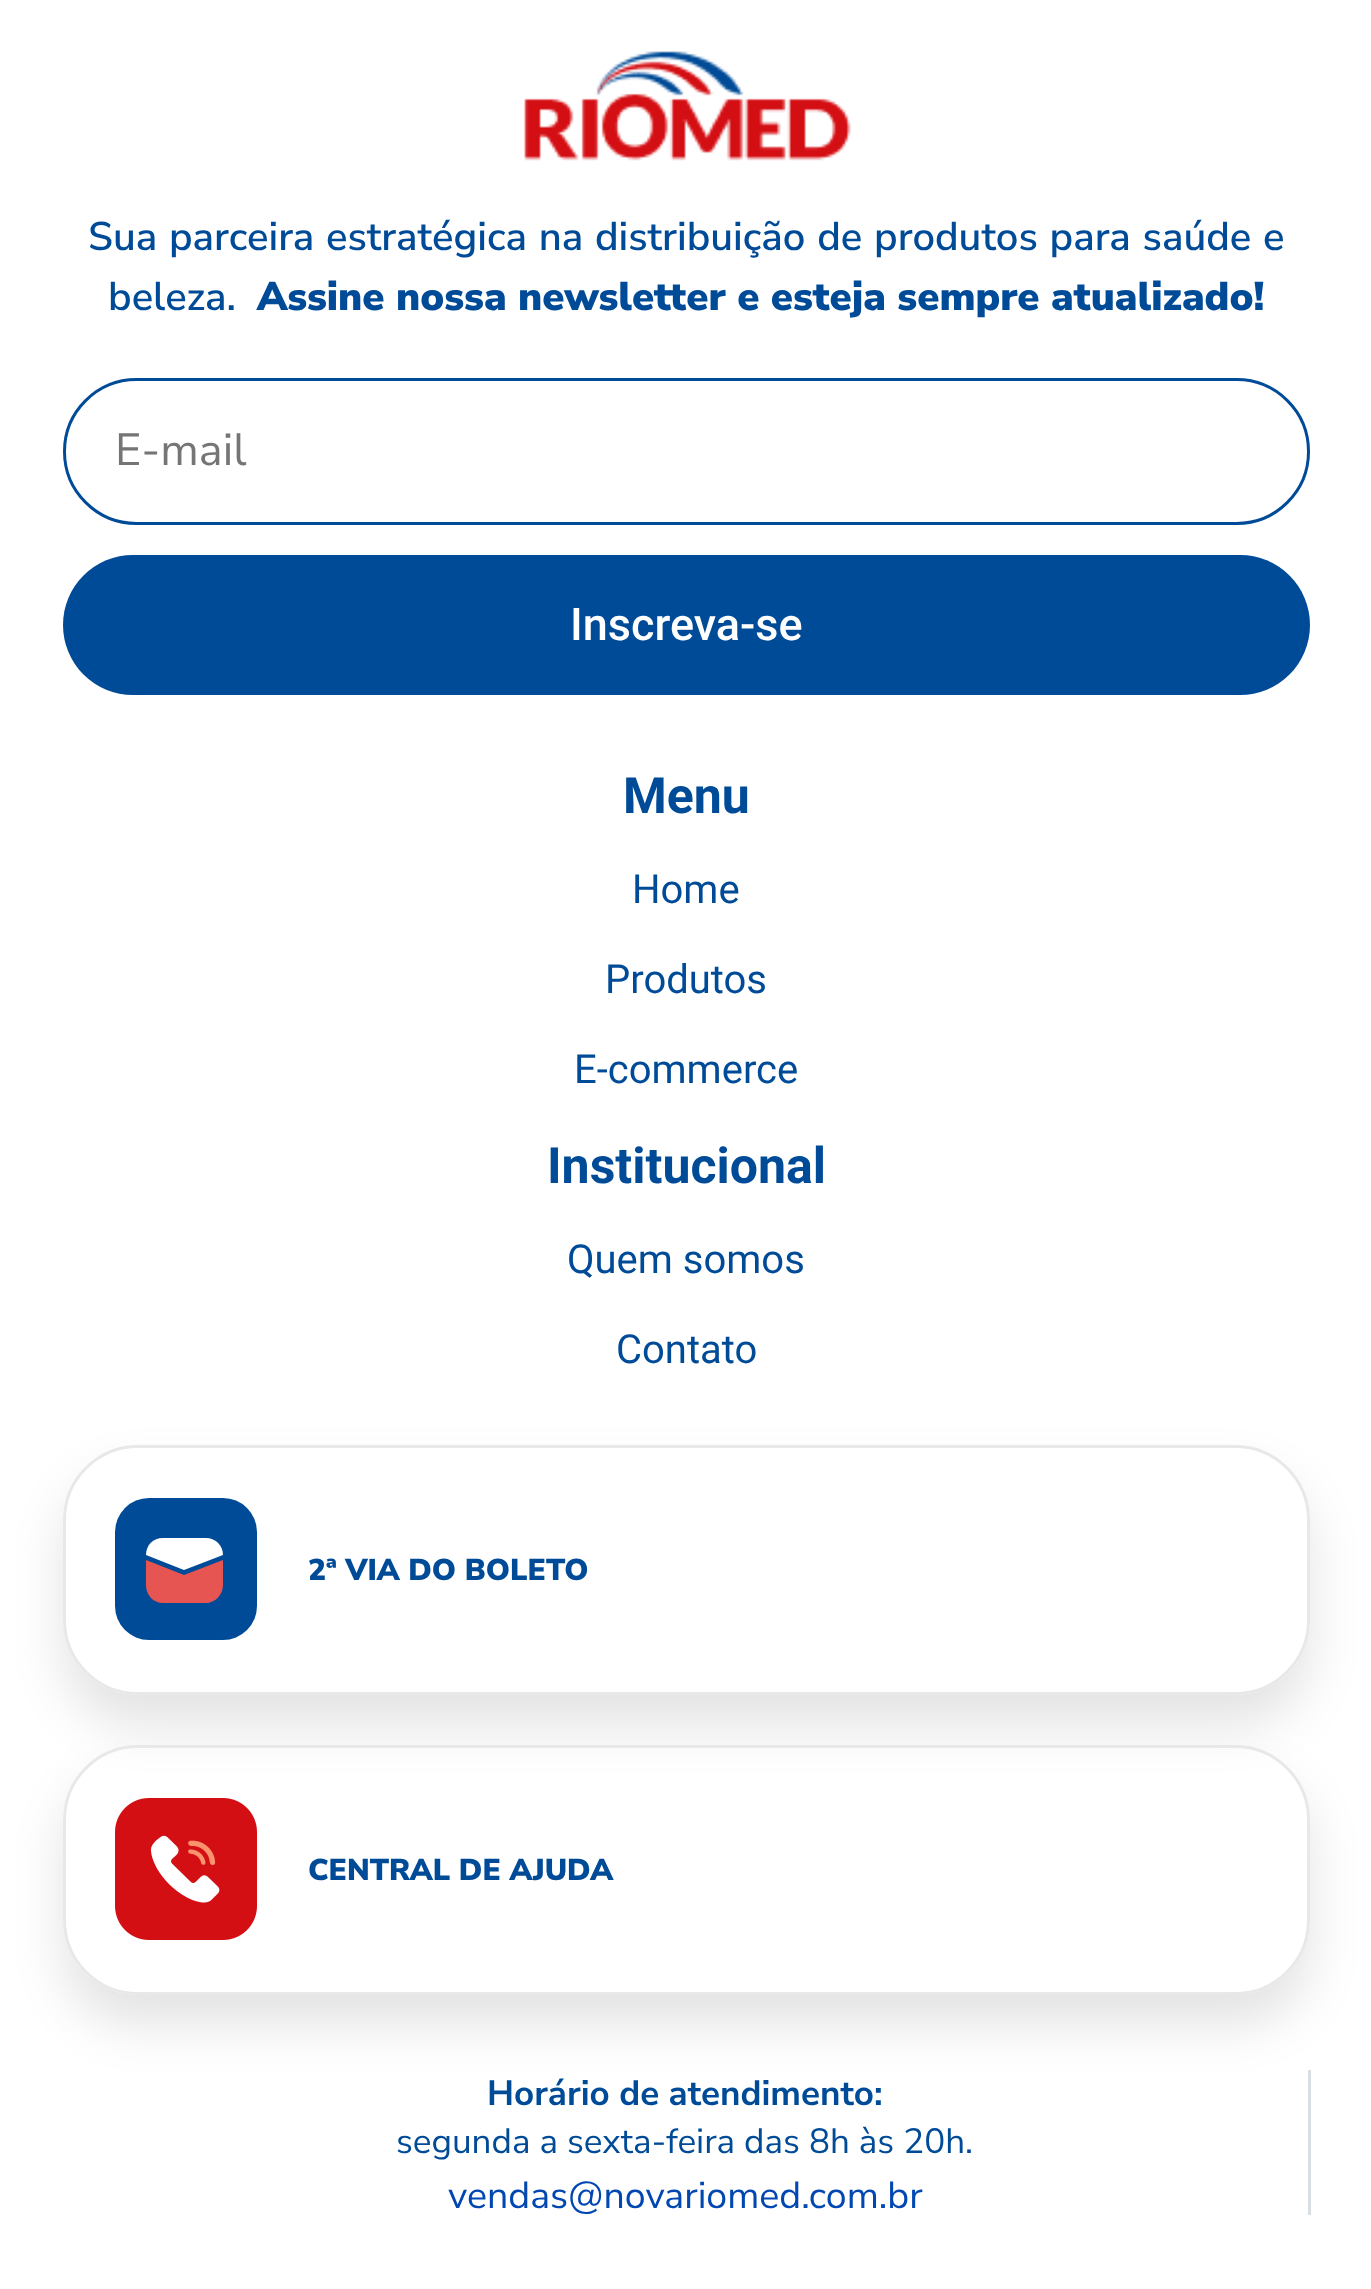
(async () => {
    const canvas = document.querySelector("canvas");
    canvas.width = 1371;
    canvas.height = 2289;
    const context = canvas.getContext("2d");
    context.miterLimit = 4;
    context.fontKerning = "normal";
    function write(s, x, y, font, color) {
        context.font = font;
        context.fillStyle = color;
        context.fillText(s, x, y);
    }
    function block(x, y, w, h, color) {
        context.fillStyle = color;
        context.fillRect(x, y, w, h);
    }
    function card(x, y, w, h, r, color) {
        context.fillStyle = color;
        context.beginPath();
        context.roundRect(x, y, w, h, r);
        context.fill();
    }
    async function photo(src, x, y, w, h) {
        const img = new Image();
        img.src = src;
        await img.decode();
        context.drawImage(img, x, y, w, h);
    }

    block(0, 0, 1371, 2289, "rgb(255, 255, 255)");
    await photo("media/1.png", 524, 51, 327, 110);
    context.wordSpacing = "1.25px";
    write("Sua parceira estratégica na distribuição de produtos para saúde e", 88, 250, "600 40px Nunito Sans", "rgb(0, 75, 151)");
    context.wordSpacing = "0px";
    write("beleza.", 108, 310, "600 40px Nunito Sans", "rgb(0, 75, 151)");
    write("Assine nossa newsletter e esteja sempre atualizado!", 257, 310, "900 40px Nunito Sans", "rgb(0, 75, 151)");
    context.beginPath();
    context.roundRect(64.5, 379.5, 1244, 144, 72);
    context.strokeStyle = "rgb(0, 75, 151)";
    context.lineWidth = 3;
    context.stroke();
    write("E-mail", 115, 465, "45px Nunito Sans", "rgb(117, 117, 117)");
    card(63, 555, 1247, 140, 70, "rgb(0, 75, 151)");
    write("Inscreva-se", 570, 640, "500 45px Roboto", "rgb(255, 255, 255)");
    write("Menu", 623, 813, "bold 50px Roboto", "rgb(0, 75, 151)");
    write("Home", 632, 903, "40px Roboto", "rgb(0, 75, 151)");
    write("Produtos", 605, 993, "40px Roboto", "rgb(0, 75, 151)");
    write("E-commerce", 574, 1083, "40px Roboto", "rgb(0, 75, 151)");
    write("Institucional", 547, 1183, "bold 50px Roboto", "rgb(0, 75, 151)");
    write("Quem somos", 567, 1273, "40px Roboto", "rgb(0, 75, 151)");
    write("Contato", 616, 1363, "40px Roboto", "rgb(0, 75, 151)");
    context.save();
    context.beginPath();
    context.moveTo(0, 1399);
    context.lineTo(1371, 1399);
    context.lineTo(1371, 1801);
    context.lineTo(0, 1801);
    context.closePath();
    context.moveTo(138, 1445);
    context.lineTo(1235, 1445);
    context.bezierCurveTo(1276.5, 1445, 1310, 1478.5, 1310, 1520);
    context.lineTo(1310, 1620);
    context.bezierCurveTo(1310, 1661.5, 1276.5, 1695, 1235, 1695);
    context.lineTo(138, 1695);
    context.bezierCurveTo(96.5, 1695, 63, 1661.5, 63, 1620);
    context.lineTo(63, 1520);
    context.bezierCurveTo(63, 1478.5, 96.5, 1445, 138, 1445);
    context.closePath();
    context.clip("evenodd");
    context.fillStyle = "rgba(0, 0, 0, 0.11)";
    context.filter = "blur(25px)";
    context.beginPath();
    context.roundRect(63, 1475, 1247, 250, 75);
    context.fill();
    context.filter = "none";
    context.restore();
    context.beginPath();
    context.roundRect(64.5, 1446.5, 1244, 247, 73.5);
    context.strokeStyle = "rgb(232, 232, 232)";
    context.stroke();
    card(115, 1498, 142, 142, 34, "rgb(0, 75, 151)");
    context.fillStyle = "rgb(231, 85, 82)";
    context.beginPath();
    context.moveTo(146, 1560);
    context.lineTo(184, 1575);
    context.lineTo(223, 1560);
    context.lineTo(223, 1585);
    context.bezierCurveTo(223, 1595, 215, 1603, 206, 1603);
    context.lineTo(163, 1603);
    context.bezierCurveTo(153, 1603, 146, 1595, 146, 1585);
    context.closePath();
    context.fill();
    context.fillStyle = "rgb(255, 255, 255)";
    context.beginPath();
    context.moveTo(146, 1555);
    context.bezierCurveTo(146, 1545, 153, 1538, 163, 1538);
    context.lineTo(206, 1538);
    context.bezierCurveTo(215, 1538, 223, 1545, 223, 1555);
    context.lineTo(184, 1570);
    context.closePath();
    context.fill();
    write("2ª VIA DO BOLETO", 308, 1580, "900 30px Nunito Sans", "rgb(0, 75, 151)");
    context.save();
    context.beginPath();
    context.moveTo(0, 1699);
    context.lineTo(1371, 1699);
    context.lineTo(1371, 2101);
    context.lineTo(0, 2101);
    context.closePath();
    context.moveTo(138, 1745);
    context.lineTo(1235, 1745);
    context.bezierCurveTo(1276.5, 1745, 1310, 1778.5, 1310, 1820);
    context.lineTo(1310, 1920);
    context.bezierCurveTo(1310, 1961.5, 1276.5, 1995, 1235, 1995);
    context.lineTo(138, 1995);
    context.bezierCurveTo(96.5, 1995, 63, 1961.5, 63, 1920);
    context.lineTo(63, 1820);
    context.bezierCurveTo(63, 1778.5, 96.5, 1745, 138, 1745);
    context.closePath();
    context.clip("evenodd");
    context.fillStyle = "rgba(0, 0, 0, 0.11)";
    context.filter = "blur(25px)";
    context.beginPath();
    context.roundRect(63, 1775, 1247, 250, 75);
    context.fill();
    context.filter = "none";
    context.restore();
    context.beginPath();
    context.roundRect(64.5, 1746.5, 1244, 247, 73.5);
    context.stroke();
    await photo("media/2.png", 115, 1798, 142, 142);
    write("CENTRAL DE AJUDA", 308, 1880, "900 30px Nunito Sans", "rgb(0, 75, 151)");
    block(1308, 2070, 3, 145, "rgb(217, 222, 226)");
    write("Horário de atendimento:", 487, 2105, "bold 35px Nunito Sans", "rgb(0, 75, 151)");
    write("segunda a sexta-feira das 8h às 20h.", 396, 2153, "35px Nunito Sans", "rgb(0, 75, 151)");
    write("vendas@novariomed.com.br", 448, 2208, "37.5px Nunito Sans", "rgb(0, 71, 178)");
})();
